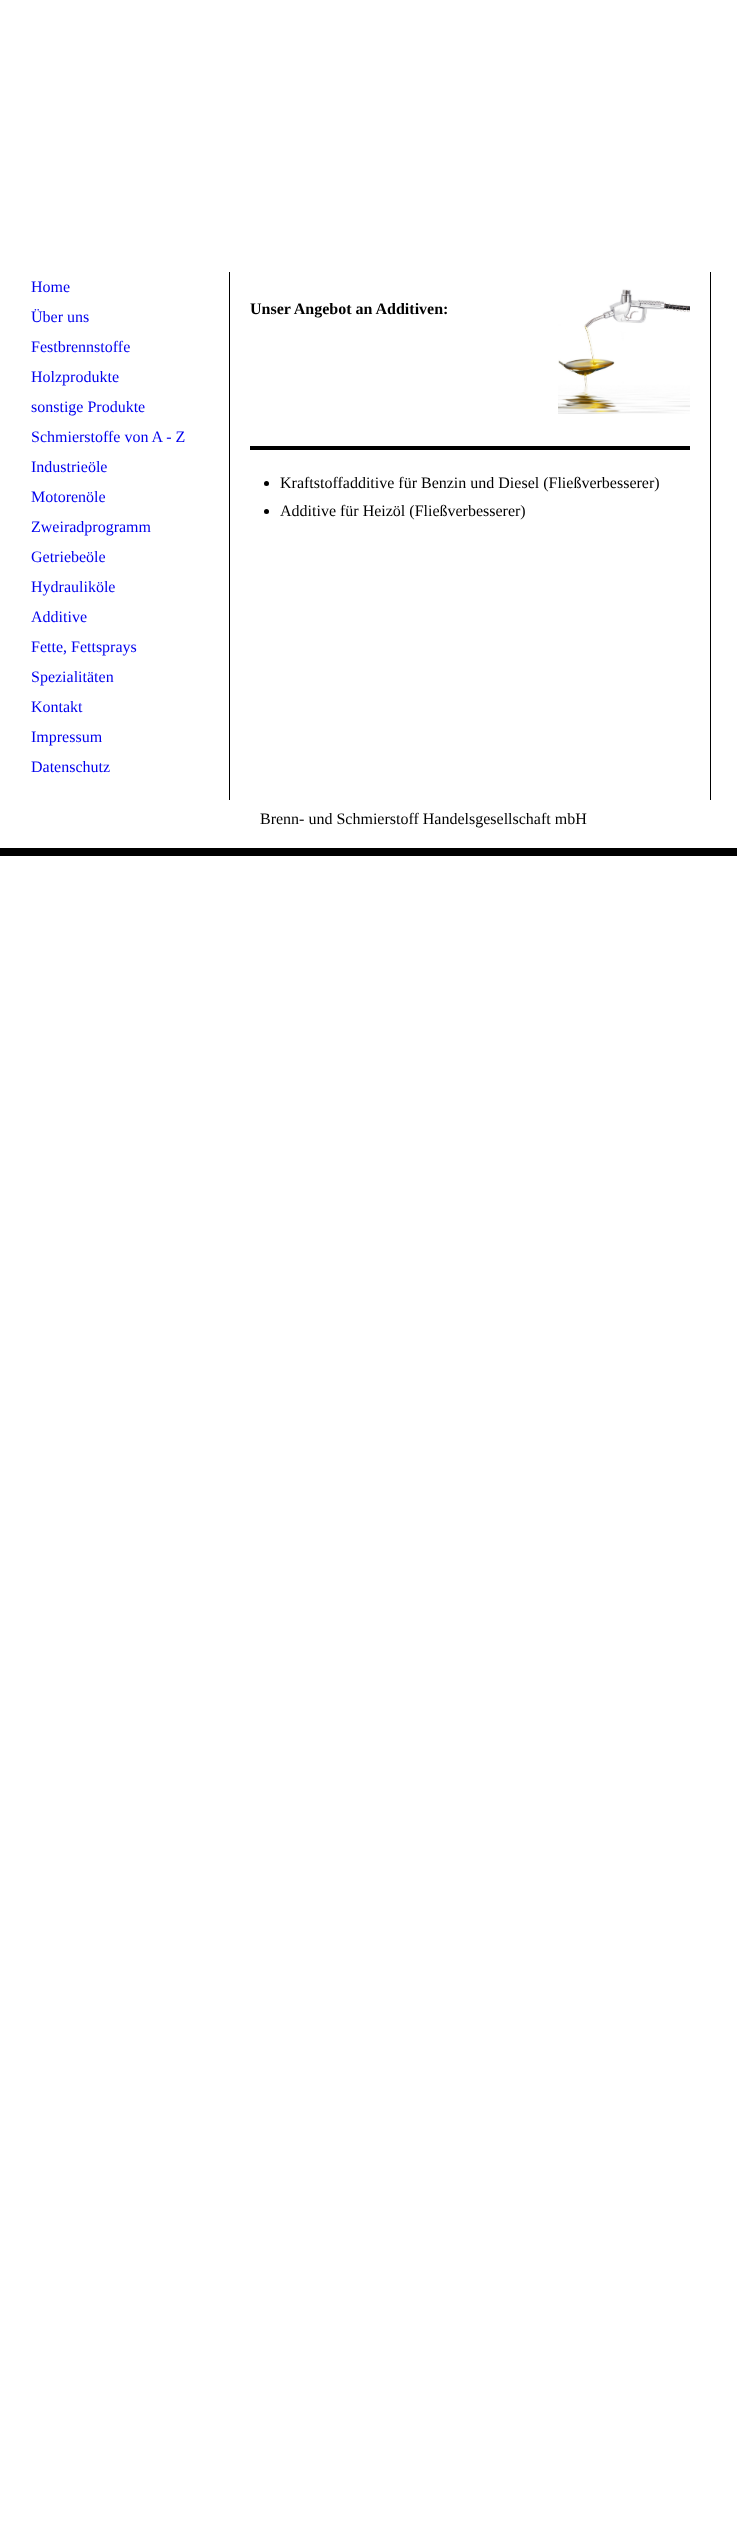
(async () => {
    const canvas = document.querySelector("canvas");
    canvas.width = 737;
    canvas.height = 2533;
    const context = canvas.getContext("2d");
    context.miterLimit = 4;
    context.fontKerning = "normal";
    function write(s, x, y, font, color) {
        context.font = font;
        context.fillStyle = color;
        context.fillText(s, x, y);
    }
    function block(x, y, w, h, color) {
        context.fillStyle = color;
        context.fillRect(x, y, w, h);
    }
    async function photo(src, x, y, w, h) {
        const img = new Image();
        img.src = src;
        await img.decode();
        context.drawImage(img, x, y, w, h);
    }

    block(0, 0, 737, 2533, "rgb(255, 255, 255)");
    block(229, 272, 1, 528, "rgb(0, 0, 0)");
    write("Home", 31, 292, "16px Liberation Serif", "rgb(0, 0, 238)");
    write("Über uns", 31, 322, "16px Liberation Serif", "rgb(0, 0, 238)");
    write("Festbrennstoffe", 31, 352, "16px Liberation Serif", "rgb(0, 0, 238)");
    write("Holzprodukte", 31, 382, "16px Liberation Serif", "rgb(0, 0, 238)");
    write("sonstige Produkte", 31, 412, "16px Liberation Serif", "rgb(0, 0, 238)");
    write("Schmierstoffe von A - Z", 31, 442, "16px Liberation Serif", "rgb(0, 0, 238)");
    write("Industrieöle", 31, 472, "16px Liberation Serif", "rgb(0, 0, 238)");
    write("Motorenöle", 31, 502, "16px Liberation Serif", "rgb(0, 0, 238)");
    write("Zweiradprogramm", 31, 532, "16px Liberation Serif", "rgb(0, 0, 238)");
    write("Getriebeöle", 31, 562, "16px Liberation Serif", "rgb(0, 0, 238)");
    write("Hydrauliköle", 31, 592, "16px Liberation Serif", "rgb(0, 0, 238)");
    write("Additive", 31, 622, "16px Liberation Serif", "rgb(0, 0, 238)");
    write("Fette, Fettsprays", 31, 652, "16px Liberation Serif", "rgb(0, 0, 238)");
    write("Spezialitäten", 31, 682, "16px Liberation Serif", "rgb(0, 0, 238)");
    write("Kontakt", 31, 712, "16px Liberation Serif", "rgb(0, 0, 238)");
    write("Impressum", 31, 742, "16px Liberation Serif", "rgb(0, 0, 238)");
    write("Datenschutz", 31, 772, "16px Liberation Serif", "rgb(0, 0, 238)");
    write("Unser Angebot an Additiven:", 250, 314, "bold 16px Liberation Serif", "rgb(0, 0, 0)");
    await photo("media/1.png", 558, 282, 132, 132);
    block(250, 446, 440, 4, "rgb(0, 0, 0)");
    context.beginPath();
    context.arc(266.5, 483.5, 2.5, 0, Math.PI * 2);
    context.fill();
    write("Kraftstoffadditive für Benzin und Diesel (Fließverbesserer)", 280, 488, "16px Liberation Serif", "rgb(0, 0, 0)");
    context.beginPath();
    context.arc(266.5, 511.5, 2.5, 0, Math.PI * 2);
    context.fill();
    write("Additive für Heizöl (Fließverbesserer)", 280, 516, "16px Liberation Serif", "rgb(0, 0, 0)");
    block(710, 272, 1, 528, "rgb(0, 0, 0)");
    block(0, 848, 737, 8, "rgb(0, 0, 0)");
    write("Brenn- und Schmierstoff Handelsgesellschaft mbH", 260, 824, "16px Liberation Serif", "rgb(0, 0, 0)");
})();
